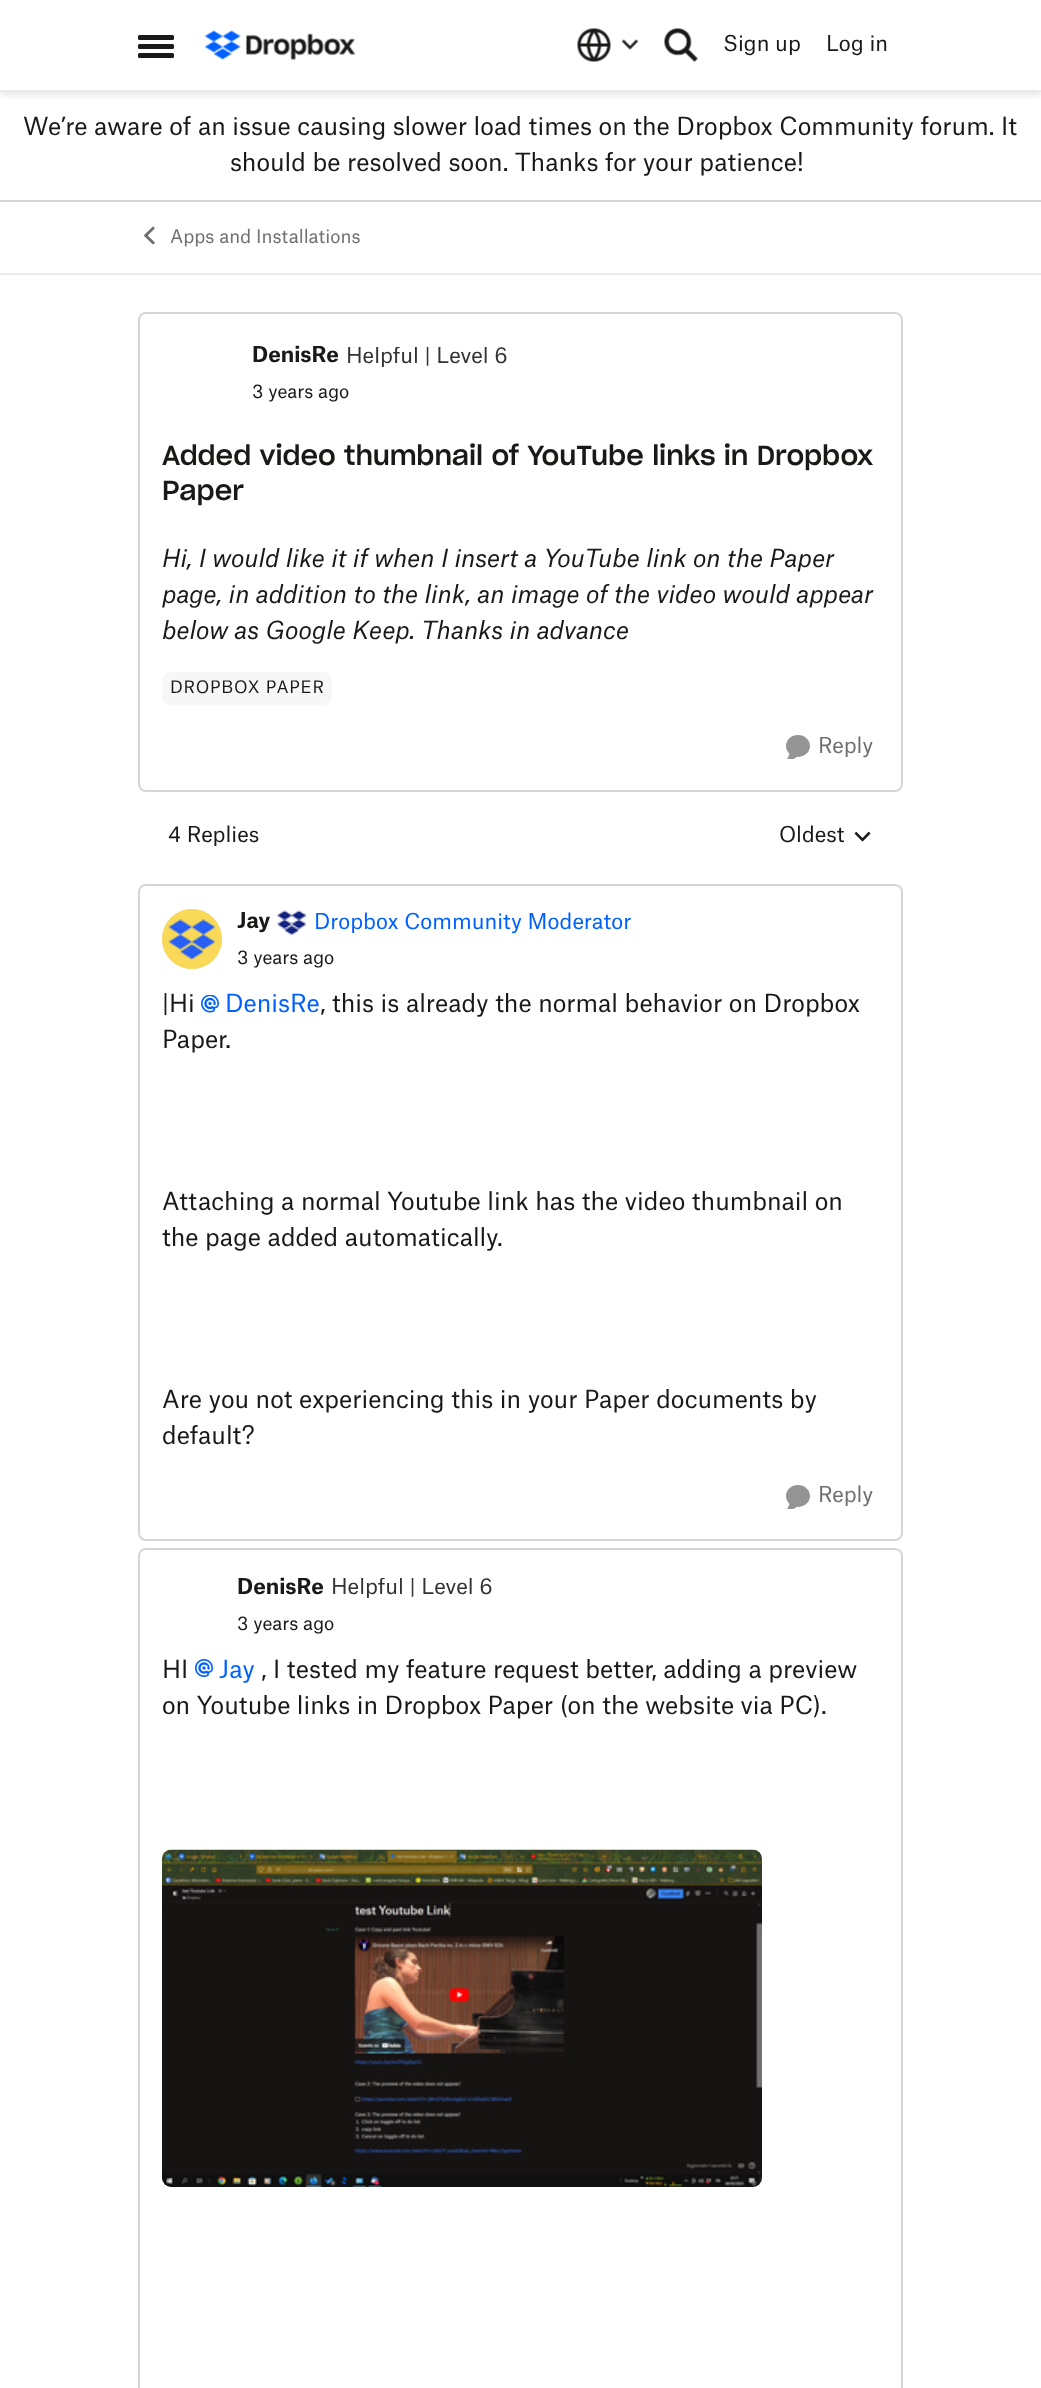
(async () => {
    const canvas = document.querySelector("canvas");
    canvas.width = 1041;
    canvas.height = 2388;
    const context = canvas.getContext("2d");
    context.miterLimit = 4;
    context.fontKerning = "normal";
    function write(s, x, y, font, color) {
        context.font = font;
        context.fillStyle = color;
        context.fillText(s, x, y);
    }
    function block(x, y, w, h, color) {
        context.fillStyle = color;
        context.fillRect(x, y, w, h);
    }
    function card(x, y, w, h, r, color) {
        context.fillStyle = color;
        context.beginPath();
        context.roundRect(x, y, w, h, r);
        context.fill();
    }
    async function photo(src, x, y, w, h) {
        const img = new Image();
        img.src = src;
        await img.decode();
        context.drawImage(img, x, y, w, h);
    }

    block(0, 0, 1041, 2388, "rgb(255, 255, 255)");
    context.fillStyle = "rgba(51, 51, 51, 0.12)";
    context.filter = "blur(3px)";
    context.beginPath();
    context.rect(0, 3, 1041, 92);
    context.fill();
    context.filter = "none";
    block(0, 0, 1041, 90, "rgb(255, 255, 255)");
    block(0, 90, 1041, 2, "rgb(235, 235, 235)");
    card(138, 35, 36, 5, 1.5, "rgb(26, 25, 24)");
    card(138, 44, 36, 5, 1.5, "rgb(26, 25, 24)");
    card(138, 53, 36, 5, 1.5, "rgb(26, 25, 24)");
    await photo("media/1.png", 204, 30, 152, 30);
    await photo("media/2.png", 577, 28, 34, 34);
    await photo("media/3.png", 621, 39, 18, 11);
    await photo("media/4.png", 664, 28, 34, 34);
    write("Sign up", 723, 51, "21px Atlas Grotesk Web", "rgb(26, 25, 24)");
    write("Log in", 826, 51, "21px Atlas Grotesk Web", "rgb(26, 25, 24)");
    block(0, 200, 1041, 2, "rgb(215, 215, 215)");
    write("We’re aware of an issue causing slower load times on the Dropbox Community forum. It", 23, 135, "24px Atlas Grotesk Web", "rgb(26, 25, 24)");
    write("should be resolved soon. Thanks for your patience!", 230, 171, "24px Atlas Grotesk Web", "rgb(26, 25, 24)");
    block(0, 273, 1041, 2, "rgb(235, 235, 235)");
    await photo("media/5.png", 144, 226, 11, 19);
    write("Apps and Installations", 170, 243, "18px Atlas Grotesk Web", "rgb(112, 112, 112)");
    context.beginPath();
    context.roundRect(139, 313, 763, 478, 7);
    context.strokeStyle = "rgb(214, 214, 214)";
    context.lineWidth = 2;
    context.stroke();
    write("DenisRe", 252, 362, "bold 21px Atlas Grotesk Web", "rgb(26, 25, 24)");
    context.save();
    context.beginPath();
    context.rect(347, 347, 162, 21);
    context.clip();
    write("Helpful | Level 6", 346, 363, "21px Atlas Grotesk Web", "rgb(51, 51, 51)");
    context.restore();
    write("3 years ago", 252, 398, "18px Atlas Grotesk Web", "rgb(26, 25, 24)");
    write("Added video thumbnail of YouTube links in Dropbox", 162, 465, "500 27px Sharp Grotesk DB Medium", "rgb(26, 25, 24)");
    write("Paper", 162, 500, "500 27px Sharp Grotesk DB Medium", "rgb(26, 25, 24)");
    write("Hi, I would like it if when I insert a YouTube link on the Paper", 162, 567, "italic 24px Atlas Grotesk Web", "rgb(26, 25, 24)");
    write("page, in addition to the link, an image of the video would appear", 162, 603, "italic 24px Atlas Grotesk Web", "rgb(26, 25, 24)");
    write("below as Google Keep. Thanks in advance", 162, 639, "italic 24px Atlas Grotesk Web", "rgb(26, 25, 24)");
    card(162, 672, 170, 33, 9, "rgb(247, 247, 247)");
    context.letterSpacing = "0.75px";
    write("DROPBOX PAPER", 170, 693, "16.5px Atlas Grotesk Web", "rgb(26, 25, 24)");
    await photo("media/6.png", 786, 735, 24, 24);
    context.letterSpacing = "0px";
    write("Reply", 818, 753, "21px Atlas Grotesk Web", "rgb(112, 112, 112)");
    write("4 Replies", 168, 842, "21px Atlas Grotesk Web", "rgb(26, 25, 24)");
    write("Oldest", 779, 842, "21px Atlas Grotesk Web", "rgb(26, 25, 24)");
    await photo("media/7.png", 854, 831, 17, 11);
    context.beginPath();
    context.roundRect(139, 885, 763, 655, 7);
    context.stroke();
    context.fillStyle = "rgb(217, 217, 217)";
    context.beginPath();
    context.arc(192, 939, 30, 0, Math.PI * 2);
    context.fill();
    await photo("media/8.png", 162, 909, 60, 60);
    write("Jay", 237, 928, "bold 21px Atlas Grotesk Web", "rgb(26, 25, 24)");
    await photo("media/9.png", 277, 910, 29, 25);
    write("Dropbox Community Moderator", 314, 929, "21px Atlas Grotesk Web", "rgb(0, 97, 254)");
    write("3 years ago", 237, 964, "18px Atlas Grotesk Web", "rgb(26, 25, 24)");
    write("|Hi", 162, 1012, "24px Atlas Grotesk Web", "rgb(26, 25, 24)");
    await photo("media/10.png", 201, 995, 18, 18);
    write("DenisRe", 225, 1012, "24px Atlas Grotesk Web", "rgb(0, 97, 254)");
    write(", this is already the normal behavior on Dropbox", 320, 1012, "24px Atlas Grotesk Web", "rgb(26, 25, 24)");
    write("Paper.", 162, 1048, "24px Atlas Grotesk Web", "rgb(26, 25, 24)");
    write("Attaching a normal Youtube link has the video thumbnail on", 162, 1210, "24px Atlas Grotesk Web", "rgb(26, 25, 24)");
    write("the page added automatically.", 162, 1246, "24px Atlas Grotesk Web", "rgb(26, 25, 24)");
    write("Are you not experiencing this in your Paper documents by", 162, 1408, "24px Atlas Grotesk Web", "rgb(26, 25, 24)");
    write("default?", 162, 1444, "24px Atlas Grotesk Web", "rgb(26, 25, 24)");
    await photo("media/11.png", 786, 1485, 24, 24);
    write("Reply", 818, 1502, "21px Atlas Grotesk Web", "rgb(112, 112, 112)");
    context.beginPath();
    context.roundRect(139, 1549, 763, 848, 7);
    context.stroke();
    write("DenisRe", 237, 1594, "bold 21px Atlas Grotesk Web", "rgb(26, 25, 24)");
    context.save();
    context.beginPath();
    context.rect(332, 1578, 162, 21);
    context.clip();
    write("Helpful | Level 6", 331, 1594, "21px Atlas Grotesk Web", "rgb(51, 51, 51)");
    context.restore();
    write("3 years ago", 237, 1630, "18px Atlas Grotesk Web", "rgb(26, 25, 24)");
    write("HI", 162, 1678, "24px Atlas Grotesk Web", "rgb(26, 25, 24)");
    await photo("media/12.png", 195, 1659, 18, 18);
    write("Jay", 219, 1678, "24px Atlas Grotesk Web", "rgb(0, 97, 254)");
    write(", I tested my feature request better, adding a preview", 261, 1678, "24px Atlas Grotesk Web", "rgb(26, 25, 24)");
    write("on Youtube links in Dropbox Paper (on the website via PC).", 162, 1714, "24px Atlas Grotesk Web", "rgb(26, 25, 24)");
    await photo("media/13.png", 162, 1849, 600, 338);
})();
